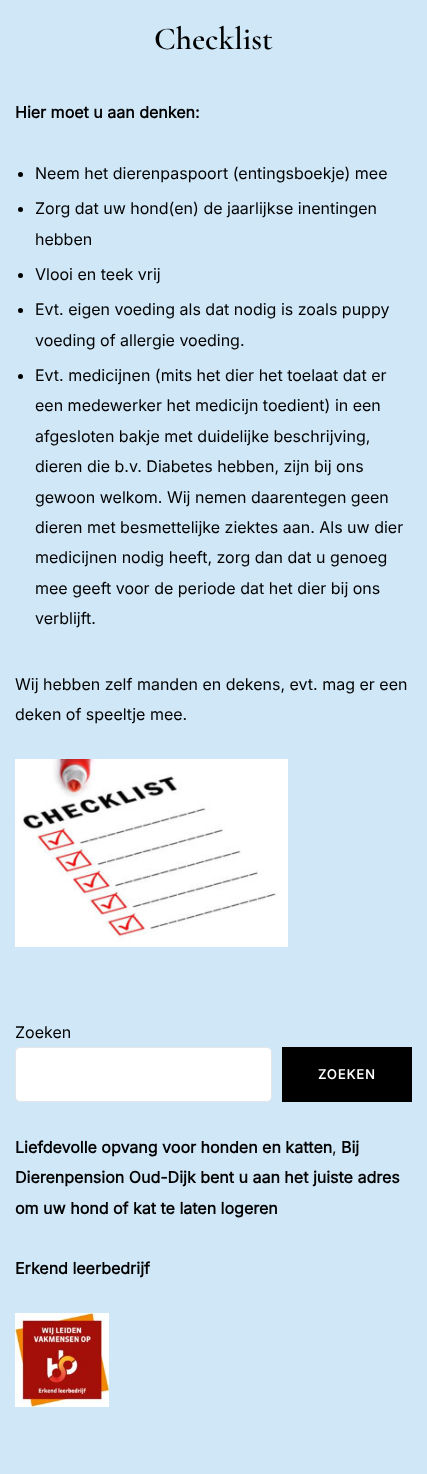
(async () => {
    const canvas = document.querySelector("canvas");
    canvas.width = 427;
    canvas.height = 1474;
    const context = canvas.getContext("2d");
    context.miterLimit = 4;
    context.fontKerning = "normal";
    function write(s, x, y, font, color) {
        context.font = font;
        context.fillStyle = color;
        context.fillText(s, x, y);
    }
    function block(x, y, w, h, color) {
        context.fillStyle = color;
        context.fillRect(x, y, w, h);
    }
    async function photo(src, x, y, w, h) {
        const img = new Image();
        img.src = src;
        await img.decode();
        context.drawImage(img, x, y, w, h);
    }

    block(0, 0, 427, 1474, "rgb(207, 231, 247)");
    write("Checklist", 154, 49, "600 32px Cormorant Garamond", "rgb(0, 0, 0)");
    write("Hier moet u aan denken:", 15, 118, "bold 16px Inter", "rgb(0, 0, 0)");
    context.beginPath();
    context.arc(20.5, 174.5, 2.5, 0, Math.PI * 2);
    context.fill();
    write("Neem het dierenpaspoort (entingsboekje) mee", 35, 179, "16px Inter", "rgb(0, 0, 0)");
    context.beginPath();
    context.arc(20.5, 209.5, 2.5, 0, Math.PI * 2);
    context.fill();
    write("Zorg dat uw hond(en) de jaarlijkse inentingen", 35, 214, "16px Inter", "rgb(0, 0, 0)");
    write("hebben", 35, 245, "16px Inter", "rgb(0, 0, 0)");
    context.beginPath();
    context.arc(20.5, 275.5, 2.5, 0, Math.PI * 2);
    context.fill();
    write("Vlooi en teek vrij", 35, 280, "16px Inter", "rgb(0, 0, 0)");
    context.beginPath();
    context.arc(20.5, 310.5, 2.5, 0, Math.PI * 2);
    context.fill();
    write("Evt. eigen voeding als dat nodig is zoals puppy", 35, 315, "16px Inter", "rgb(0, 0, 0)");
    write("voeding of allergie voeding.", 35, 346, "16px Inter", "rgb(0, 0, 0)");
    context.beginPath();
    context.arc(20.5, 376.5, 2.5, 0, Math.PI * 2);
    context.fill();
    write("Evt. medicijnen (mits het dier het toelaat dat er", 35, 381, "16px Inter", "rgb(0, 0, 0)");
    write("een medewerker het medicijn toedient) in een", 35, 411, "16px Inter", "rgb(0, 0, 0)");
    write("afgesloten bakje met duidelijke beschrijving,", 35, 442, "16px Inter", "rgb(0, 0, 0)");
    write("dieren die b.v. Diabetes hebben, zijn bij ons", 35, 472, "16px Inter", "rgb(0, 0, 0)");
    write("gewoon welkom. Wij nemen daarentegen geen", 35, 503, "16px Inter", "rgb(0, 0, 0)");
    write("dieren met besmettelijke ziektes aan. Als uw dier", 35, 533, "16px Inter", "rgb(0, 0, 0)");
    write("medicijnen nodig heeft, zorg dan dat u genoeg", 35, 563, "16px Inter", "rgb(0, 0, 0)");
    write("mee geeft voor de periode dat het dier bij ons", 35, 594, "16px Inter", "rgb(0, 0, 0)");
    write("verblijft.", 35, 624, "16px Inter", "rgb(0, 0, 0)");
    write("Wij hebben zelf manden en dekens, evt. mag er een", 15, 690, "16px Inter", "rgb(0, 0, 0)");
    write("deken of speeltje mee.", 15, 720, "16px Inter", "rgb(0, 0, 0)");
    await photo("media/1.png", 15, 759, 273, 188);
    write("Zoeken", 15, 1038, "16px Inter", "rgb(0, 0, 0)");
    context.fillStyle = "rgb(255, 255, 255)";
    context.beginPath();
    context.roundRect(15.5, 1047.5, 256, 54, 4.5);
    context.fill();
    context.strokeStyle = "rgb(228, 230, 234)";
    context.stroke();
    block(282, 1047, 130, 55, "rgb(0, 0, 0)");
    context.letterSpacing = "1px";
    write("ZOEKEN", 318, 1079, "bold 13px Inter", "rgb(255, 255, 255)");
    context.letterSpacing = "0px";
    write("Liefdevolle opvang voor honden en katten", 15, 1153, "bold 16px Inter", "rgb(0, 0, 0)");
    write(",", 332, 1153, "16px Inter", "rgb(0, 0, 0)");
    write("Bij", 341, 1153, "bold 16px Inter", "rgb(0, 0, 0)");
    write("Dierenpension Oud-Dijk bent u aan het juiste adres", 15, 1183, "bold 16px Inter", "rgb(0, 0, 0)");
    write("om uw hond of kat te laten logeren", 15, 1214, "bold 16px Inter", "rgb(0, 0, 0)");
    write("Erkend leerbedrijf", 15, 1274, "bold 16px Inter", "rgb(0, 0, 0)");
    await photo("media/2.png", 15, 1313, 94, 94);
})();
